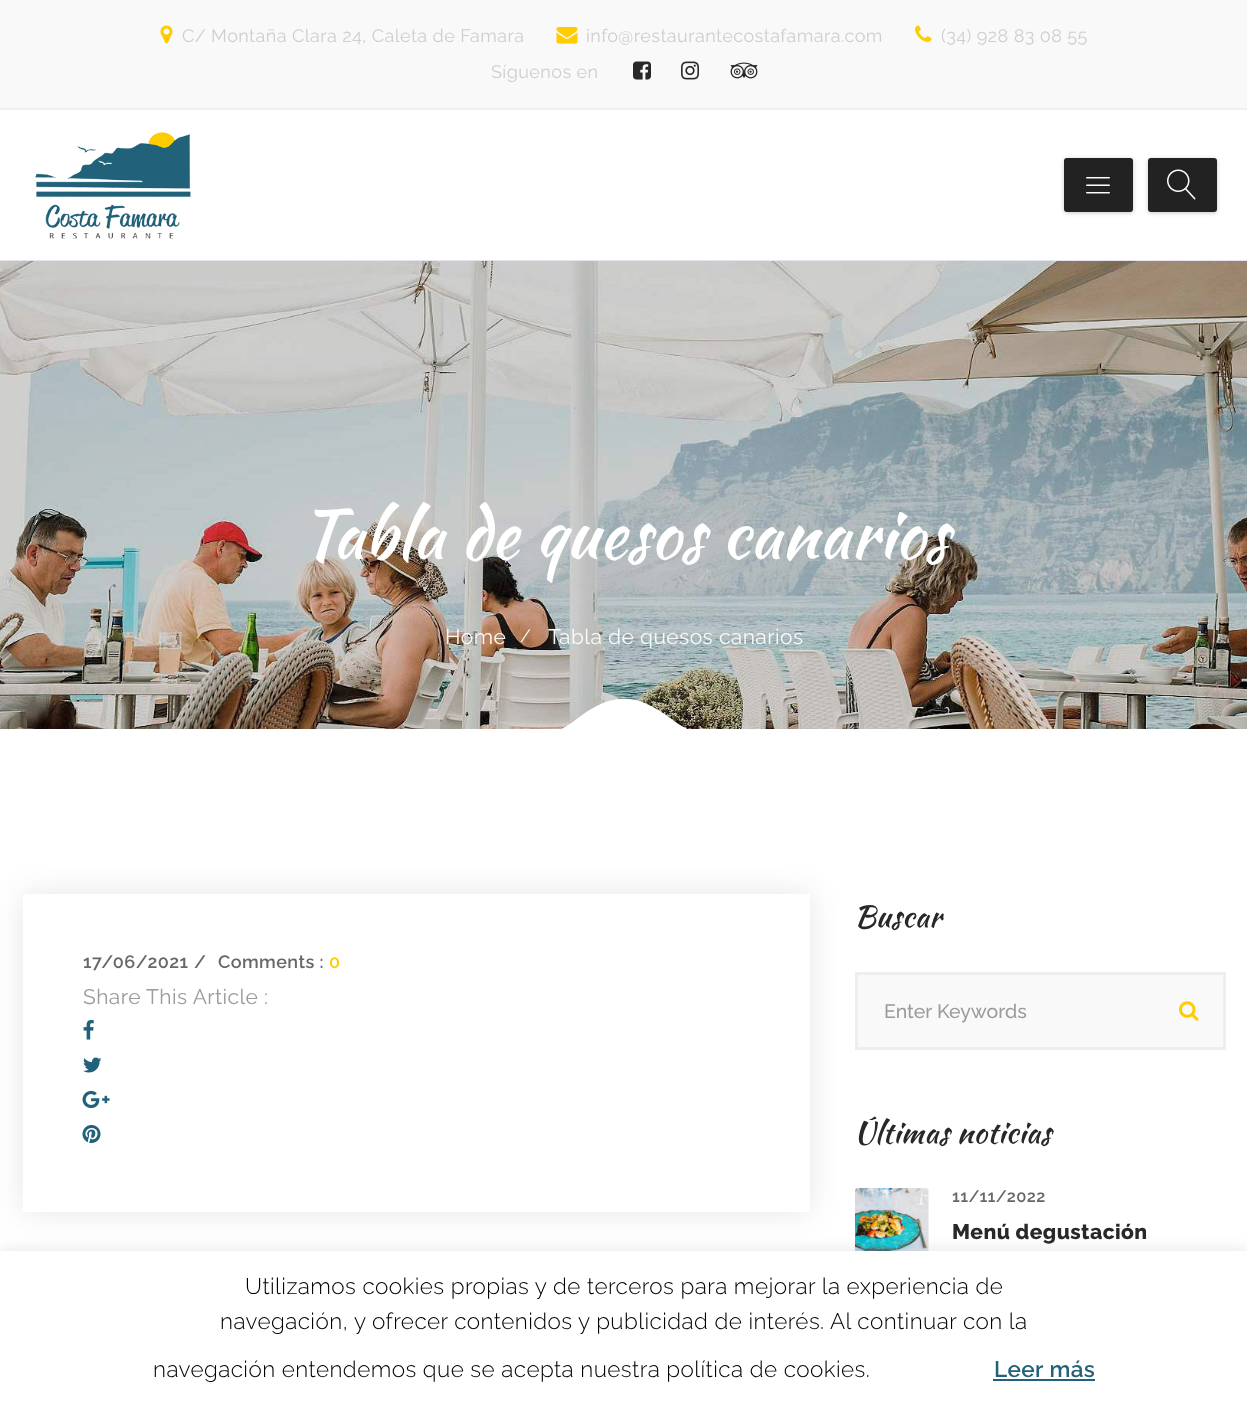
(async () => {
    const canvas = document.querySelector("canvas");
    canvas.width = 1247;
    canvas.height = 1411;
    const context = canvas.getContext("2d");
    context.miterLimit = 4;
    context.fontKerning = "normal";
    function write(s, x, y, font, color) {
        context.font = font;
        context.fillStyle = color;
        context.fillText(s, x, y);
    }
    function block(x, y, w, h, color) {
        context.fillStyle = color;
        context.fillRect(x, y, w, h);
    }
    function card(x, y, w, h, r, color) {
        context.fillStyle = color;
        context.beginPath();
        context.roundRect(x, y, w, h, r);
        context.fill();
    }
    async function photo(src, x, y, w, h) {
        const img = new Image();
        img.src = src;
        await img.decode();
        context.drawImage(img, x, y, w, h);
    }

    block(0, 0, 1247, 1411, "rgb(255, 255, 255)");
    block(0, 0, 1247, 108, "rgb(249, 249, 249)");
    block(0, 108, 1247, 2, "rgb(239, 239, 239)");
    await photo("media/1.png", 160, 25, 13, 19);
    context.letterSpacing = "0.42px";
    write("C/ Montaña Clara 24, Caleta de Famara", 182, 42, "18px Raleway", "rgb(206, 206, 206)");
    await photo("media/2.png", 556, 27, 22, 17);
    write("info@restaurantecostafamara.com", 586, 42, "18px Raleway", "rgb(206, 206, 206)");
    await photo("media/3.png", 915, 25, 17, 17);
    write("(34) 928 83 08 55", 941, 42, "18px Raleway", "rgb(206, 206, 206)");
    write("Síguenos en", 491, 78, "18px Raleway", "rgb(206, 206, 206)");
    await photo("media/4.png", 633, 61, 18, 19);
    await photo("media/5.png", 681, 61, 18, 19);
    await photo("media/6.png", 730, 62, 28, 17);
    block(0, 260, 1247, 1, "rgb(231, 228, 239)");
    await photo("media/7.png", 35, 132, 156, 107);
    context.fillStyle = "rgba(0, 0, 0, 0.22)";
    context.filter = "blur(2px)";
    context.beginPath();
    context.roundRect(1064, 159, 69, 54, 3);
    context.fill();
    context.filter = "none";
    card(1064, 158, 69, 54, 3, "rgb(34, 34, 34)");
    await photo("media/8.png", 1086, 177, 24, 17);
    context.fillStyle = "rgba(0, 0, 0, 0.22)";
    context.filter = "blur(2px)";
    context.beginPath();
    context.roundRect(1148, 159, 69, 54, 3);
    context.fill();
    context.filter = "none";
    card(1148, 158, 69, 54, 3, "rgb(34, 34, 34)");
    await photo("media/9.png", 1167, 169, 29, 31);
    await photo("media/10.png", 0, 261, 1247, 468);
    write("Tabla de quesos canarios", 300, 558, "67.5px Kaushan Script", "rgb(255, 255, 255)");
    write("Home", 445, 644, "21px Raleway", "rgb(249, 249, 249)");
    write("/", 520, 642, "18px Raleway", "rgb(249, 249, 249)");
    write("Tabla de quesos canarios", 548, 644, "21px Raleway", "rgb(249, 249, 249)");
    context.save();
    context.beginPath();
    context.rect(557, 698, 135, 31);
    context.clip();
    context.fillStyle = "rgb(255, 255, 255)";
    context.beginPath();
    context.moveTo(692, 731);
    context.lineTo(556, 731);
    context.bezierCurveTo(566, 728, 574, 721, 582, 715);
    context.bezierCurveTo(602, 701, 622, 693, 647, 704);
    context.bezierCurveTo(654, 707, 660, 711, 666, 715);
    context.bezierCurveTo(674, 721, 682, 727, 692, 731);
    context.closePath();
    context.fill();
    context.restore();
    context.fillStyle = "rgba(40, 40, 40, 0.12)";
    context.filter = "blur(15px)";
    context.beginPath();
    context.roundRect(23, 894, 787, 318, 1.5);
    context.fill();
    context.filter = "none";
    card(23, 894, 787, 318, 1.5, "rgb(255, 255, 255)");
    write("17/06/2021", 83, 968, "600 18px Raleway", "rgb(104, 104, 104)");
    write("/", 194, 968, "600 18px Raleway", "rgb(104, 104, 104)");
    write("Comments :", 218, 968, "600 18px Raleway", "rgb(104, 104, 104)");
    write("0", 329, 968, "600 18px Raleway", "rgb(255, 204, 0)");
    write("Share This Article :", 83, 1004, "21px Raleway", "rgb(155, 155, 155)");
    await photo("media/11.png", 83, 1020, 11, 20);
    await photo("media/12.png", 83, 1057, 19, 16);
    await photo("media/13.png", 82, 1090, 28, 19);
    await photo("media/14.png", 82, 1125, 19, 18);
    write("Buscar", 854, 927, "30px Kaushan Script", "rgb(40, 40, 40)");
    context.fillStyle = "rgb(249, 249, 249)";
    context.beginPath();
    context.rect(856.5, 973.5, 368, 75);
    context.fill();
    context.strokeStyle = "rgb(238, 238, 238)";
    context.lineWidth = 3;
    context.stroke();
    context.letterSpacing = "0px";
    write("Enter Keywords", 884, 1018, "500 19.5px Raleway", "rgb(155, 155, 155)");
    await photo("media/15.png", 1179, 1001, 20, 20);
    context.letterSpacing = "0.42px";
    write("Últimas noticias", 854, 1143, "30px Kaushan Script", "rgb(40, 40, 40)");
    await photo("media/16.png", 855, 1188, 74, 63);
    write("11/11/2022", 952, 1202, "600 16.5px Raleway", "rgb(104, 104, 104)");
    write("Menú degustación", 952, 1239, "800 21px Raleway", "rgb(40, 40, 40)");
    context.fillStyle = "rgba(172, 171, 171, 0.3)";
    context.filter = "blur(7.5px)";
    context.beginPath();
    context.rect(0, 1250, 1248, 160);
    context.fill();
    context.filter = "none";
    block(0, 1251, 1247, 160, "rgb(255, 255, 255)");
    write("Utilizamos cookies propias y de terceros para mejorar la experiencia de", 245, 1294, "300 22.5px Raleway", "rgb(0, 0, 0)");
    write("navegación, y ofrecer contenidos y publicidad de interés. Al continuar con la", 220, 1329, "300 22.5px Raleway", "rgb(0, 0, 0)");
    write("navegación entendemos que se acepta nuestra política de cookies.", 153, 1377, "300 22.5px Raleway", "rgb(0, 0, 0)");
    write("Leer más", 994, 1377, "600 22.5px Raleway", "rgb(33, 98, 122)");
    block(993, 1379, 102, 2, "rgb(33, 98, 122)");
})();
